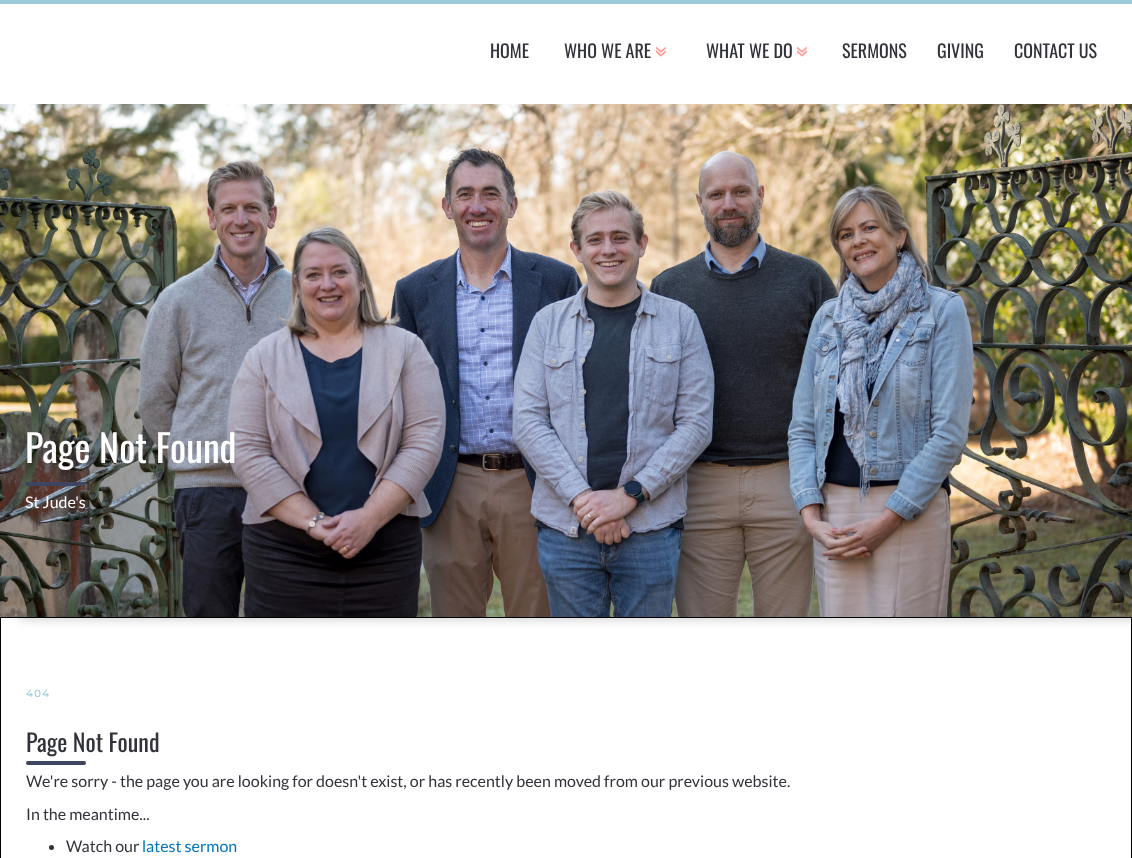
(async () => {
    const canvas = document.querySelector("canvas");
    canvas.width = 1132;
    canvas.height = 858;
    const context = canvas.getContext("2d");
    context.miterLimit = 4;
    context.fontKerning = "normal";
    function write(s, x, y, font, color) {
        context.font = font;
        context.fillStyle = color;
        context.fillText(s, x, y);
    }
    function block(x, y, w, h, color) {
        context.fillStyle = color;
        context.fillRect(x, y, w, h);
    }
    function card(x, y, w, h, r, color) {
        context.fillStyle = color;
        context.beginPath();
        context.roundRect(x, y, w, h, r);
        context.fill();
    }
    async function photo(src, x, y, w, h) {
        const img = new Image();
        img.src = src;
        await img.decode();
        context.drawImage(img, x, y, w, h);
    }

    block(0, 0, 1132, 858, "rgb(255, 255, 255)");
    context.fillStyle = "rgba(0, 0, 0, 0.2)";
    context.filter = "blur(5.5px)";
    context.beginPath();
    context.rect(19, 106, 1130, 513);
    context.fill();
    context.filter = "none";
    block(13, 97, 1119, 7, "rgb(255, 255, 255)");
    block(0, 0, 1132, 4, "rgb(156, 203, 213)");
    write("HOME", 490, 58, "18px Oswald", "rgb(50, 51, 58)");
    write("WHO WE ARE", 564, 58, "18px Oswald", "rgb(50, 51, 58)");
    await photo("media/1.png", 656, 46, 10, 11);
    write("WHAT WE DO", 706, 58, "18px Oswald", "rgb(50, 51, 58)");
    await photo("media/1.png", 797, 46, 10, 11);
    write("SERMONS", 842, 58, "18px Oswald", "rgb(50, 51, 58)");
    write("GIVING", 937, 58, "18px Oswald", "rgb(50, 51, 58)");
    write("CONTACT US", 1014, 58, "18px Oswald", "rgb(50, 51, 58)");
    await photo("media/2.png", 0, 104, 1132, 513);
    write("Page Not Found", 25, 463, "38px Oswald", "rgb(255, 255, 255)");
    card(25, 482, 60, 4, 2, "rgb(62, 69, 96)");
    write("St Jude's", 25, 508, "16px Lato", "rgb(255, 255, 255)");
    context.strokeStyle = "rgb(0, 0, 0)";
    context.strokeRect(0.5, 617.5, 1131, 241);
    context.letterSpacing = "1px";
    write("404", 26, 697, "500 10.5px Montserrat", "rgb(156, 203, 213)");
    context.letterSpacing = "0px";
    write("Page Not Found", 26, 752, "24px Oswald", "rgb(50, 51, 58)");
    card(26, 761, 60, 4, 2, "rgb(62, 69, 96)");
    write("We're sorry - the page you are looking for doesn't exist, or has recently been moved from our previous website.", 26, 787, "16px Lato", "rgb(50, 51, 58)");
    write("In the meantime...", 26, 820, "16px Lato", "rgb(50, 51, 58)");
    context.beginPath();
    context.arc(51.5, 847.5, 2.5, 0, Math.PI * 2);
    context.fill();
    write("Watch our", 66, 852, "16px Lato", "rgb(50, 51, 58)");
    write("latest sermon", 142, 852, "16px Lato", "rgb(1, 118, 190)");
})();
